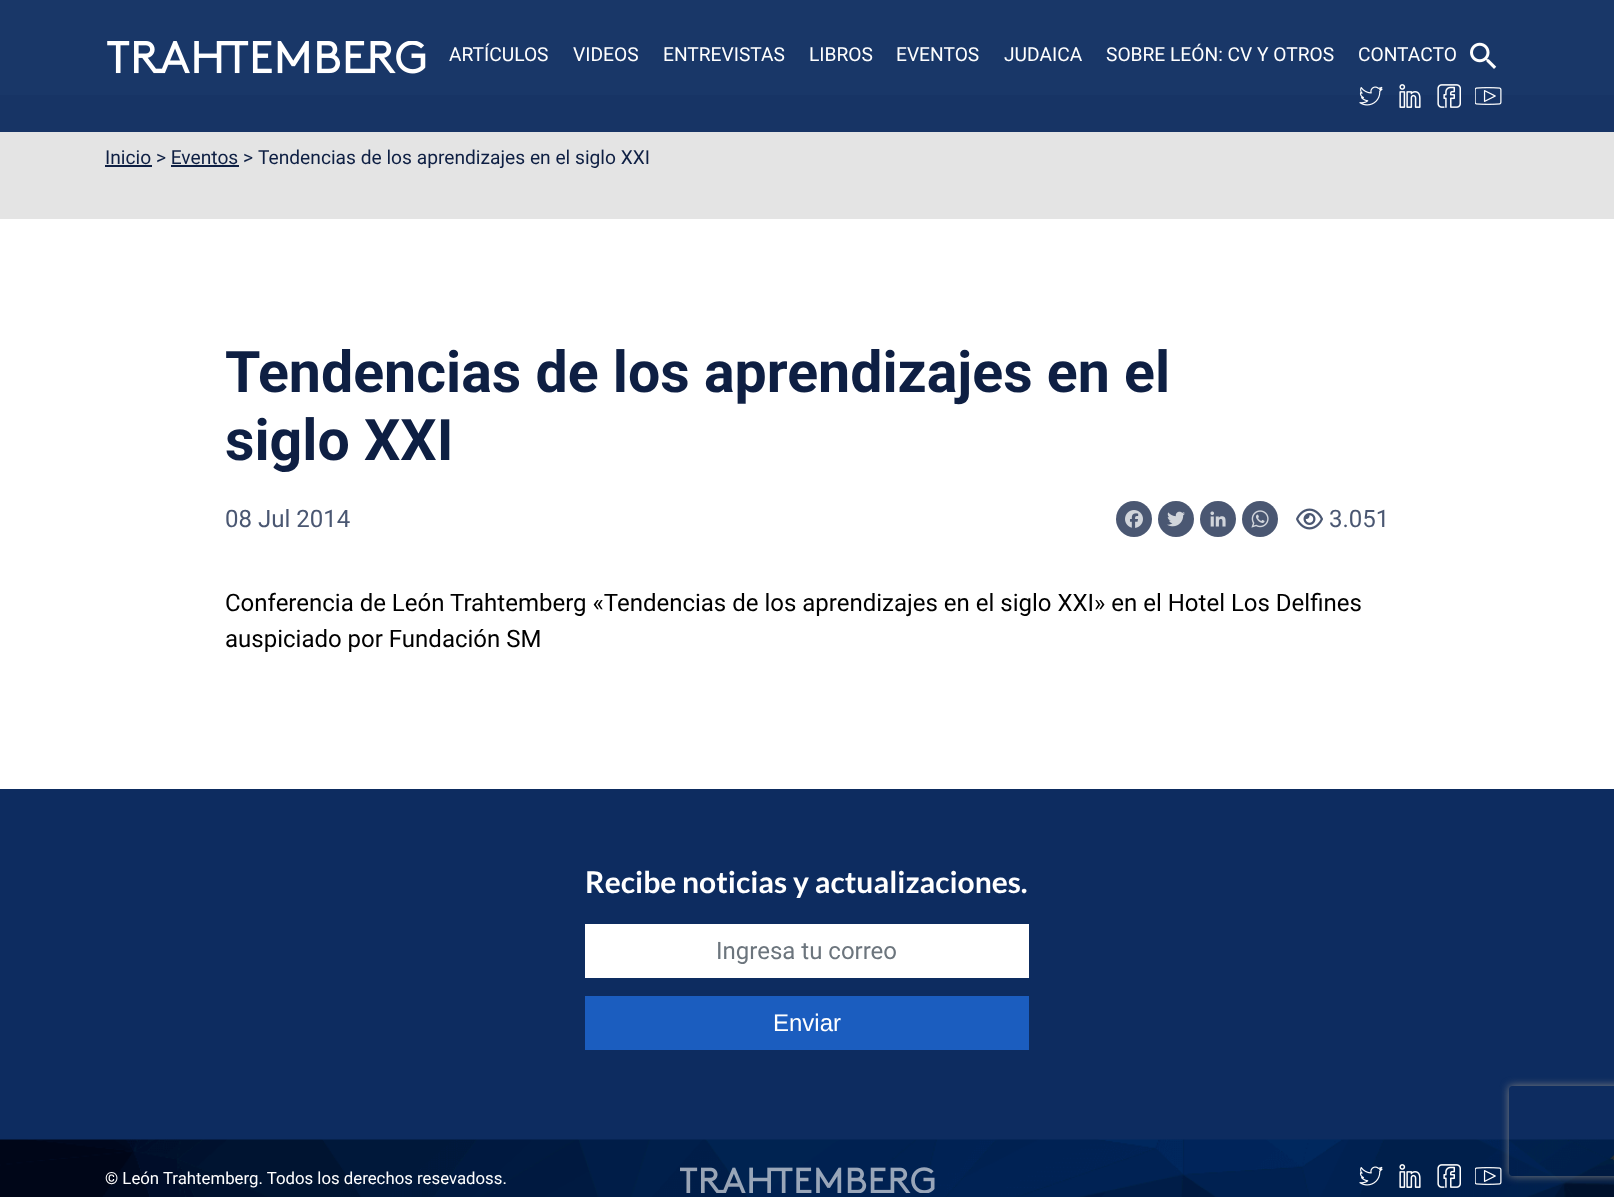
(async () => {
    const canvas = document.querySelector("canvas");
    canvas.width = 1614;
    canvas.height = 1197;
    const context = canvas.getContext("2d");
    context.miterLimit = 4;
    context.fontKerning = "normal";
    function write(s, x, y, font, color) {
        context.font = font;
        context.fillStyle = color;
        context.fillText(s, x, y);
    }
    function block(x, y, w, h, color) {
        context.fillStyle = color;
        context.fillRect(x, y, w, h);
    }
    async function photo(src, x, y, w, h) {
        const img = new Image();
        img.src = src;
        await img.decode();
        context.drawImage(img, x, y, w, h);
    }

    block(0, 0, 1614, 1197, "rgb(255, 255, 255)");
    block(0, 0, 1614, 95, "rgb(25, 55, 104)");
    await photo("media/1.png", 107, 41, 319, 33);
    write("ARTÍCULOS", 449, 61, "19.2px Roboto", "rgb(255, 255, 255)");
    write("VIDEOS", 573, 61, "19.2px Roboto", "rgb(255, 255, 255)");
    write("ENTREVISTAS", 663, 61, "19.2px Roboto", "rgb(255, 255, 255)");
    write("LIBROS", 809, 61, "19.2px Roboto", "rgb(255, 255, 255)");
    write("EVENTOS", 896, 61, "19.2px Roboto", "rgb(255, 255, 255)");
    write("JUDAICA", 1004, 61, "19.2px Roboto", "rgb(255, 255, 255)");
    write("SOBRE LEÓN: CV Y OTROS", 1106, 61, "19.2px Roboto", "rgb(255, 255, 255)");
    write("CONTACTO", 1358, 61, "19.2px Roboto", "rgb(255, 255, 255)");
    await photo("media/2.png", 1470, 42, 27, 27);
    block(0, 95, 1614, 37, "rgb(23, 52, 101)");
    await photo("media/3.png", 1359, 86, 24, 20);
    await photo("media/4.png", 1399, 84, 22, 24);
    await photo("media/5.png", 1437, 84, 24, 24);
    await photo("media/6.png", 1475, 87, 27, 18);
    block(0, 132, 1614, 87, "rgb(228, 228, 228)");
    write("Inicio > Eventos >", 105, 164, "19.2px Roboto", "rgb(14, 31, 67)");
    block(105, 165, 47, 2, "rgb(14, 31, 67)");
    write("Tendencias de los aprendizajes en el siglo XXI", 258, 164, "19.2px Roboto", "rgb(14, 31, 67)");
    block(171, 165, 68, 2, "rgb(14, 31, 67)");
    write("Tendencias de los aprendizajes en el", 225, 392, "bold 57.25px Roboto", "rgb(14, 31, 67)");
    write("siglo XXI", 225, 460, "bold 57.25px Roboto", "rgb(14, 31, 67)");
    write("08 Jul 2014", 225, 527, "24px Roboto", "rgb(74, 87, 114)");
    context.beginPath();
    context.arc(1134, 519, 18, 0, Math.PI * 2);
    context.fill();
    await photo("media/7.png", 1125, 510, 18, 18);
    context.beginPath();
    context.arc(1176, 519, 18, 0, Math.PI * 2);
    context.fill();
    await photo("media/8.png", 1167, 511, 18, 16);
    context.beginPath();
    context.arc(1218, 519, 18, 0, Math.PI * 2);
    context.fill();
    await photo("media/9.png", 1210, 511, 16, 16);
    context.beginPath();
    context.arc(1260, 519, 18, 0, Math.PI * 2);
    context.fill();
    await photo("media/10.png", 1251, 510, 18, 18);
    await photo("media/11.png", 1296, 508, 27, 22);
    write("3.051", 1329, 527, "24px Roboto", "rgb(74, 87, 114)");
    write("Conferencia de León Trahtemberg «Tendencias de los aprendizajes en el siglo XXI» en el Hotel Los Delfines", 225, 611, "24px Roboto", "rgb(0, 0, 0)");
    write("auspiciado por Fundación SM", 225, 647, "24px Roboto", "rgb(0, 0, 0)");
    block(0, 789, 1614, 351, "rgb(13, 44, 96)");
    write("Recibe noticias y actualizaciones.", 585, 893, "bold 30px Lato", "rgb(255, 255, 255)");
    block(585, 924, 444, 54, "rgb(255, 255, 255)");
    write("Ingresa tu correo", 716, 959, "24px Roboto", "rgb(108, 117, 125)");
    block(585, 996, 444, 54, "rgb(27, 93, 191)");
    write("Enviar", 773, 1031, "24px Liberation Sans", "rgb(255, 255, 255)");
    await photo("media/12.png", 0, 1139, 1614, 58);
    write("© León Trahtemberg. Todos los derechos resevadoss.", 105, 1184, "16.8px Roboto", "rgb(255, 255, 255)");
    await photo("media/13.png", 680, 1167, 255, 26);
    await photo("media/14.png", 1359, 1166, 24, 20);
    await photo("media/15.png", 1399, 1164, 22, 24);
    await photo("media/16.png", 1437, 1164, 24, 24);
    await photo("media/17.png", 1475, 1167, 27, 18);
    context.save();
    context.beginPath();
    context.moveTo(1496, 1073);
    context.lineTo(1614, 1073);
    context.lineTo(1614, 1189);
    context.lineTo(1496, 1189);
    context.closePath();
    context.moveTo(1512, 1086);
    context.lineTo(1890, 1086);
    context.bezierCurveTo(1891.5, 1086, 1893, 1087.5, 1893, 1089);
    context.lineTo(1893, 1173);
    context.bezierCurveTo(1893, 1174.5, 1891.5, 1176, 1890, 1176);
    context.lineTo(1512, 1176);
    context.bezierCurveTo(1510.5, 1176, 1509, 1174.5, 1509, 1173);
    context.lineTo(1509, 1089);
    context.bezierCurveTo(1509, 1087.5, 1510.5, 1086, 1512, 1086);
    context.closePath();
    context.clip("evenodd");
    context.fillStyle = "rgb(128, 128, 128)";
    context.filter = "blur(4px)";
    context.beginPath();
    context.roundRect(1509, 1086, 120, 90, 3);
    context.fill();
    context.filter = "none";
    context.restore();
})();
